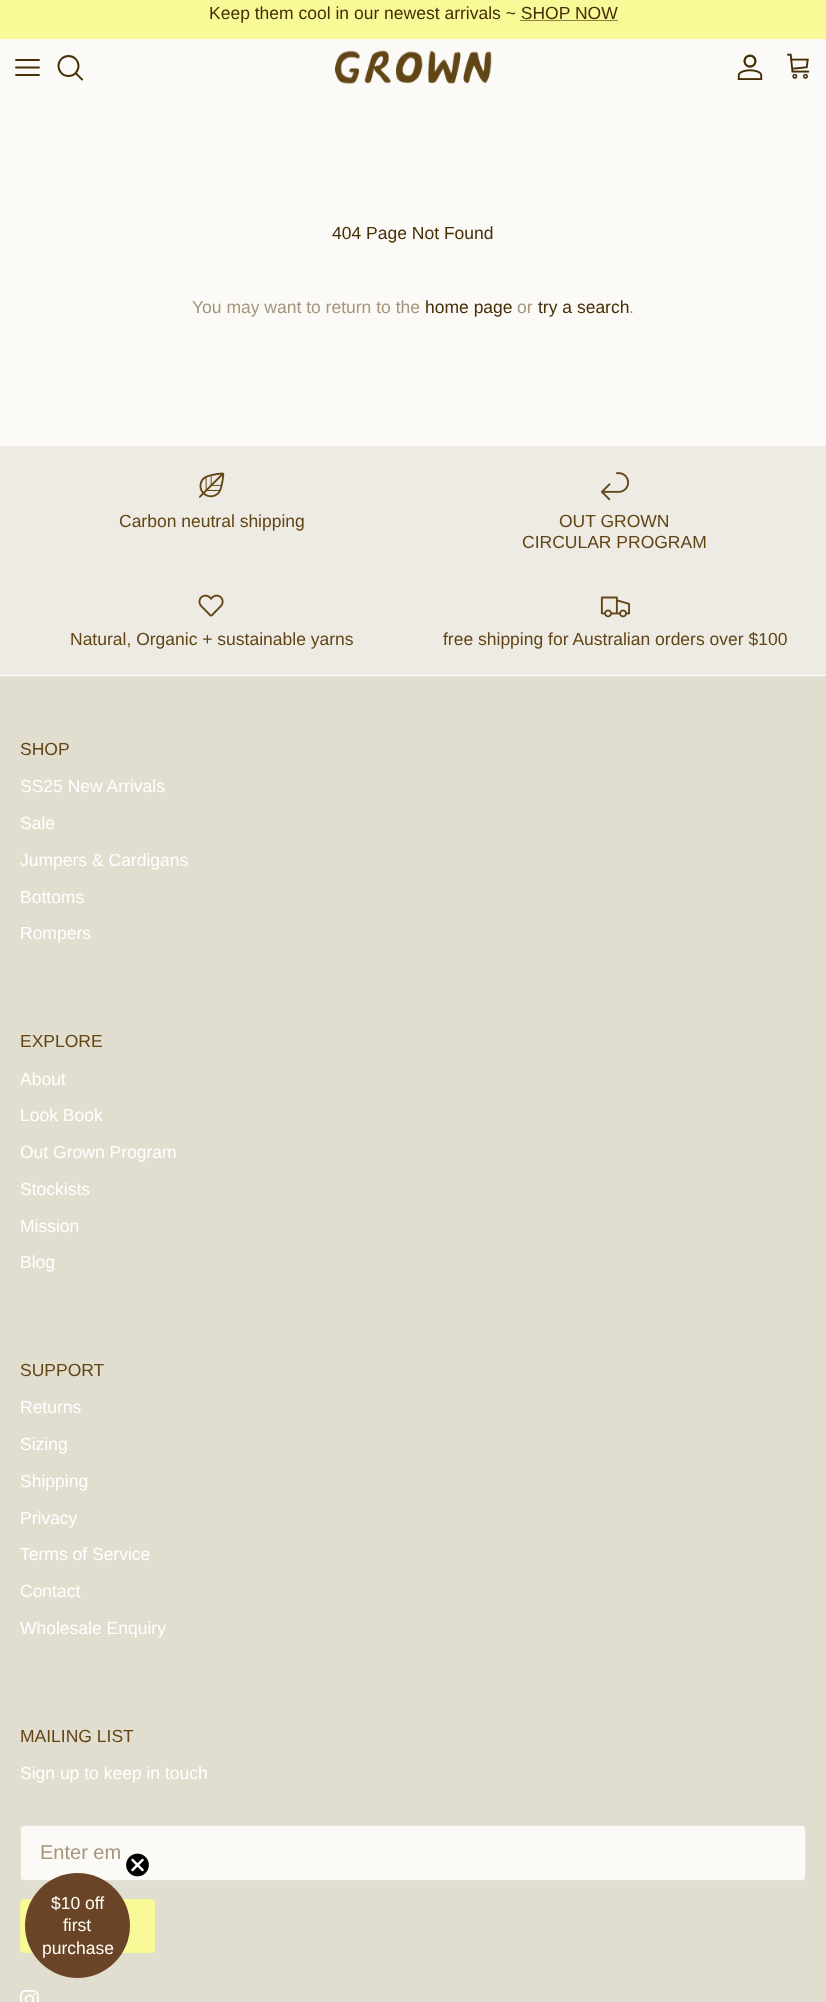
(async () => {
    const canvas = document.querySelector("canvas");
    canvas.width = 826;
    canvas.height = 2002;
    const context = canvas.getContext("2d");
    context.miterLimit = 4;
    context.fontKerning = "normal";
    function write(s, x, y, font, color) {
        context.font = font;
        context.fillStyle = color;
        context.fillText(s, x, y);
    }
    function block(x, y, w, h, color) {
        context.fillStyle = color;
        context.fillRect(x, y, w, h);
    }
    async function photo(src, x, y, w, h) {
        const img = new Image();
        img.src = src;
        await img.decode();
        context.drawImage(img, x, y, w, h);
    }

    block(0, 0, 826, 2002, "rgb(252, 250, 246)");
    block(0, 0, 826, 39, "rgb(248, 250, 152)");
    write("Keep them cool in our newest arrivals ~ SHOP NOW", 209, 19, "17.5px Arimo", "rgb(70, 46, 6)");
    block(520, 20, 98, 1, "rgb(141, 128, 64)");
    context.beginPath();
    context.moveTo(16, 67.5);
    context.lineTo(39, 67.5);
    context.moveTo(16, 60);
    context.lineTo(39, 60);
    context.moveTo(16, 75);
    context.lineTo(39, 75);
    context.strokeStyle = "rgb(70, 46, 6)";
    context.lineWidth = 1.9;
    context.lineCap = "round";
    context.lineJoin = "round";
    context.stroke();
    context.beginPath();
    context.arc(68.5, 66, 10, 0, Math.PI * 2);
    context.stroke();
    context.beginPath();
    context.moveTo(76, 73.5);
    context.lineTo(82, 79.5);
    context.lineCap = "square";
    context.lineJoin = "miter";
    context.stroke();
    await photo("media/1.png", 335, 50, 157, 34);
    await photo("media/2.png", 737, 54, 26, 26);
    await photo("media/3.png", 787, 53, 23, 26);
    write("404 Page Not Found", 332, 239, "17.5px Arimo", "rgb(70, 46, 6)");
    write("You may want to return to the", 192, 313, "17.5px Arimo", "rgb(164, 149, 124)");
    write("home page", 425, 313, "17.5px Arimo", "rgb(70, 46, 6)");
    write("or", 517, 313, "17.5px Arimo", "rgb(164, 149, 124)");
    write("try a search", 538, 313, "17.5px Arimo", "rgb(70, 46, 6)");
    write(".", 629, 313, "17.5px Arimo", "rgb(164, 149, 124)");
    block(0, 676, 826, 1326, "rgb(226, 222, 207)");
    block(0, 446, 826, 229, "rgb(237, 235, 227)");
    await photo("media/4.png", 198, 472, 27, 26);
    write("Carbon neutral shipping", 119, 527, "17.5px Arimo", "rgb(97, 69, 21)");
    await photo("media/5.png", 601, 472, 29, 29);
    write("OUT GROWN", 559, 527, "17.5px Arimo", "rgb(97, 69, 21)");
    write("CIRCULAR PROGRAM", 522, 548, "17.5px Arimo", "rgb(97, 69, 21)");
    await photo("media/6.png", 198, 594, 26, 23);
    write("Natural, Organic + sustainable yarns", 70, 645, "17.5px Arimo", "rgb(97, 69, 21)");
    await photo("media/7.png", 600, 596, 30, 22);
    write("free shipping for Australian orders over $100", 443, 645, "17.5px Arimo", "rgb(97, 69, 21)");
    block(0, 675, 826, 1, "rgb(255, 255, 255)");
    write("SHOP", 20, 755, "17.5px Arimo", "rgb(97, 69, 21)");
    write("SS25 New Arrivals", 20, 792, "17.5px Arimo", "rgb(255, 255, 255)");
    write("Sale", 20, 829, "17.5px Arimo", "rgb(255, 255, 255)");
    write("Jumpers & Cardigans", 20, 866, "17.5px Arimo", "rgb(255, 255, 255)");
    write("Bottoms", 20, 903, "17.5px Arimo", "rgb(255, 255, 255)");
    write("Rompers", 20, 939, "17.5px Arimo", "rgb(255, 255, 255)");
    write("EXPLORE", 20, 1047, "17.5px Arimo", "rgb(97, 69, 21)");
    write("About", 20, 1085, "17.5px Arimo", "rgb(255, 255, 255)");
    write("Look Book", 20, 1121, "17.5px Arimo", "rgb(255, 255, 255)");
    write("Out Grown Program", 20, 1158, "17.5px Arimo", "rgb(255, 255, 255)");
    write("Stockists", 20, 1195, "17.5px Arimo", "rgb(255, 255, 255)");
    write("Mission", 20, 1232, "17.5px Arimo", "rgb(255, 255, 255)");
    write("Blog", 20, 1268, "17.5px Arimo", "rgb(255, 255, 255)");
    write("SUPPORT", 20, 1376, "17.5px Arimo", "rgb(97, 69, 21)");
    write("Returns", 20, 1413, "17.5px Arimo", "rgb(255, 255, 255)");
    write("Sizing", 20, 1450, "17.5px Arimo", "rgb(255, 255, 255)");
    write("Shipping", 20, 1487, "17.5px Arimo", "rgb(255, 255, 255)");
    write("Privacy", 20, 1524, "17.5px Arimo", "rgb(255, 255, 255)");
    write("Terms of Service", 20, 1560, "17.5px Arimo", "rgb(255, 255, 255)");
    write("Contact", 20, 1597, "17.5px Arimo", "rgb(255, 255, 255)");
    write("Wholesale Enquiry", 20, 1634, "17.5px Arimo", "rgb(255, 255, 255)");
    write("MAILING LIST", 20, 1742, "17.5px Arimo", "rgb(97, 69, 21)");
    write("Sign up to keep in touch", 20, 1779, "17.5px Arimo", "rgb(255, 255, 255)");
    context.fillStyle = "rgb(252, 250, 246)";
    context.beginPath();
    context.roundRect(20.5, 1825.5, 785, 55, 3.5);
    context.fill();
    context.strokeStyle = "rgb(230, 225, 216)";
    context.lineWidth = 1;
    context.stroke();
    write("Enter em", 40, 1859, "20px Arimo", "rgb(164, 149, 124)");
    context.fillStyle = "rgb(248, 250, 152)";
    context.beginPath();
    context.roundRect(20.5, 1899.5, 134, 53, 3.5);
    context.fill();
    context.strokeStyle = "rgb(248, 250, 152)";
    context.stroke();
    await photo("media/8.png", 20, 1990, 19, 12);
    context.fillStyle = "rgb(105, 68, 39)";
    context.beginPath();
    context.arc(77.5, 1925.5, 52.5, 0, Math.PI * 2);
    context.fill();
    await photo("media/9.png", 125, 1852, 25, 26);
    write("$10 off", 51, 1909, "17.5px Liberation Sans", "rgb(253, 253, 245)");
    write("first", 63, 1931, "17.5px Liberation Sans", "rgb(253, 253, 245)");
    write("purchase", 42, 1954, "17.5px Liberation Sans", "rgb(253, 253, 245)");
})();
